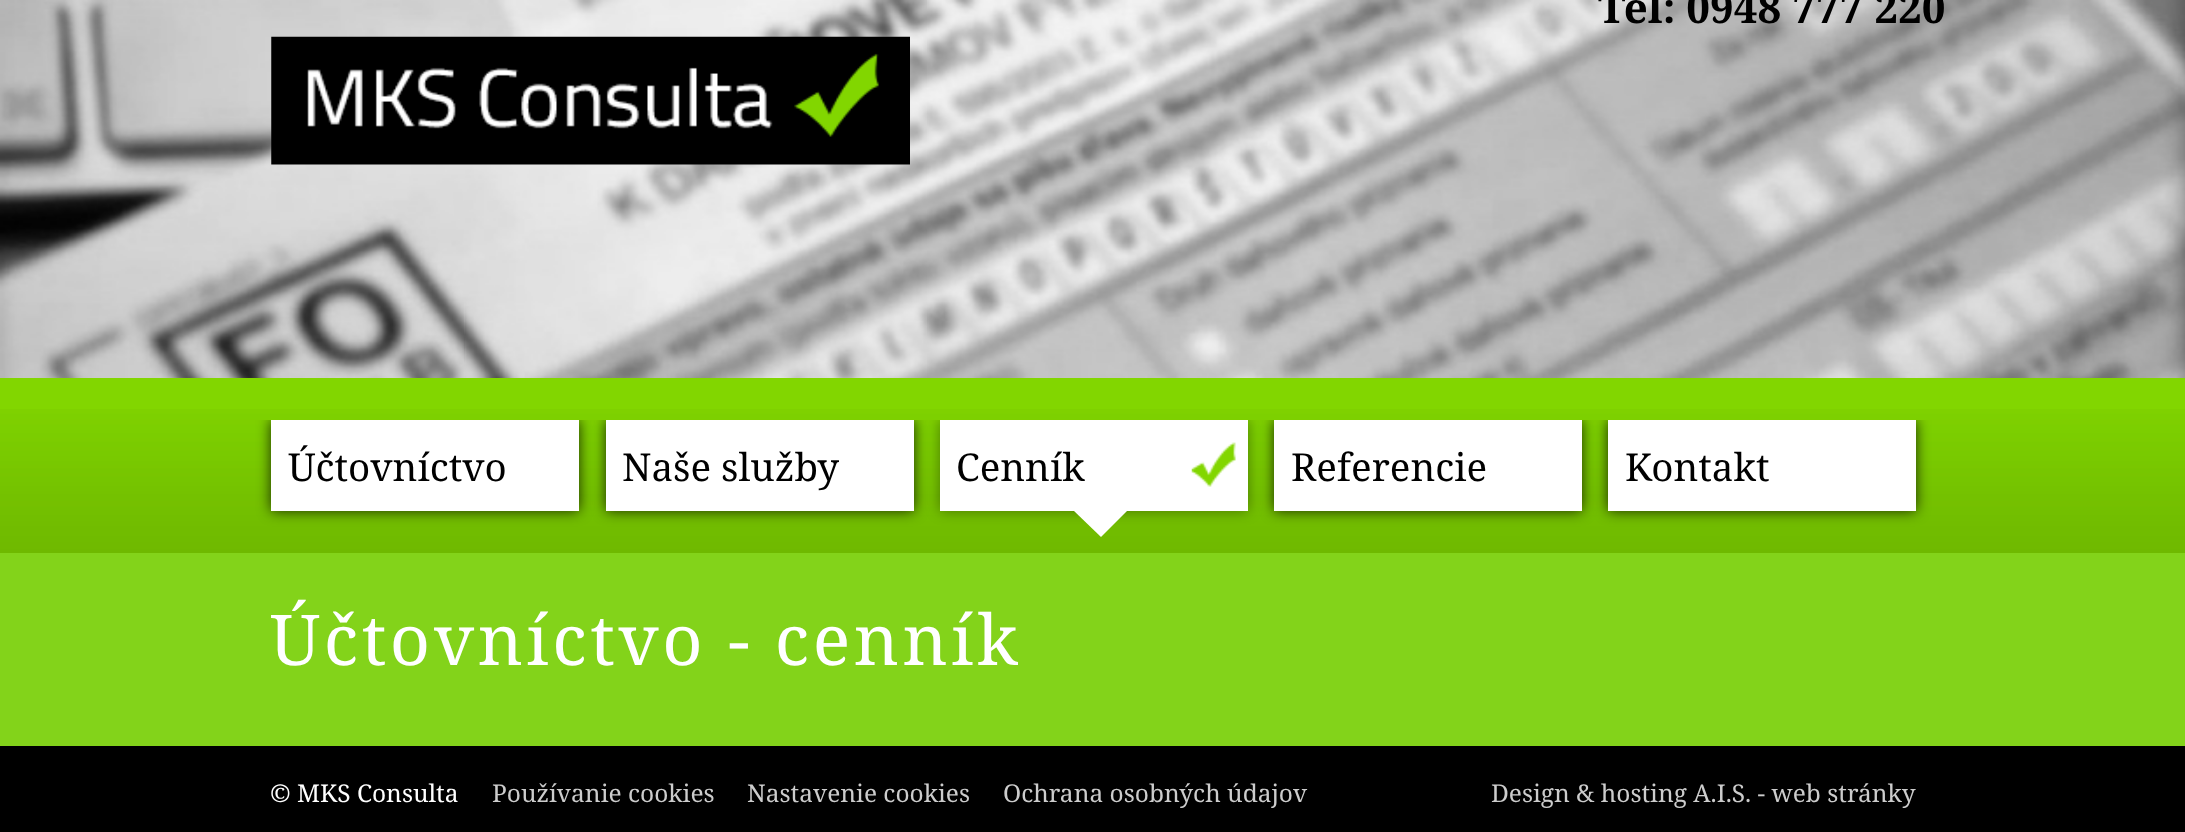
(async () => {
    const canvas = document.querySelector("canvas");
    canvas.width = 2185;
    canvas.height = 832;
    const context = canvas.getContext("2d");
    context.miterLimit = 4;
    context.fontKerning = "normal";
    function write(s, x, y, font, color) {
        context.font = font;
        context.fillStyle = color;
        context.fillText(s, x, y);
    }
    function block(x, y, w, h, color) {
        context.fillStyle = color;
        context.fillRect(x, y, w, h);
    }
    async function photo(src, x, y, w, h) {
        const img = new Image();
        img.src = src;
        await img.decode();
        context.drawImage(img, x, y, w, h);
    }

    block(0, 0, 2185, 832, "rgb(131, 211, 26)");
    await photo("media/1.png", 0, 0, 2185, 378);
    write("Tel: 0948 777 220", 1598, 23, "bold 42px Noto Serif", "rgb(0, 0, 0)");
    await photo("media/2.png", 271, 36, 639, 129);
    block(0, 378, 2185, 31, "rgb(130, 214, 0)");
    await photo("media/3.png", 0, 409, 2185, 144);
    context.save();
    context.beginPath();
    context.rect(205, 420, 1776, 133);
    context.clip();
    context.fillStyle = "rgba(0, 0, 0, 0.8)";
    context.filter = "blur(7px)";
    context.beginPath();
    context.rect(271, 420, 308, 91);
    context.fill();
    context.filter = "none";
    context.restore();
    block(271, 420, 308, 91, "rgb(255, 255, 255)");
    write("Účtovníctvo", 288, 481, "38.5px Noto Serif", "rgb(0, 0, 0)");
    context.save();
    context.beginPath();
    context.rect(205, 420, 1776, 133);
    context.clip();
    context.fillStyle = "rgba(0, 0, 0, 0.8)";
    context.filter = "blur(7px)";
    context.beginPath();
    context.rect(606, 420, 308, 91);
    context.fill();
    context.filter = "none";
    context.restore();
    block(606, 420, 308, 91, "rgb(255, 255, 255)");
    write("Naše služby", 622, 481, "38.5px Noto Serif", "rgb(0, 0, 0)");
    context.save();
    context.beginPath();
    context.rect(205, 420, 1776, 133);
    context.clip();
    context.fillStyle = "rgba(0, 0, 0, 0.4)";
    context.filter = "blur(7px)";
    context.beginPath();
    context.rect(940, 420, 308, 91);
    context.fill();
    context.filter = "none";
    context.restore();
    block(940, 420, 308, 91, "rgb(255, 255, 255)");
    await photo("media/4.png", 1191, 442, 45, 45);
    write("Cenník", 956, 481, "38.5px Noto Serif", "rgb(0, 0, 0)");
    context.fillStyle = "rgb(255, 255, 255)";
    context.beginPath();
    context.moveTo(1074, 511);
    context.lineTo(1127, 511);
    context.lineTo(1101, 537);
    context.closePath();
    context.fill();
    context.save();
    context.beginPath();
    context.rect(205, 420, 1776, 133);
    context.clip();
    context.fillStyle = "rgba(0, 0, 0, 0.8)";
    context.filter = "blur(7px)";
    context.beginPath();
    context.rect(1274, 420, 308, 91);
    context.fill();
    context.filter = "none";
    context.restore();
    block(1274, 420, 308, 91, "rgb(255, 255, 255)");
    write("Referencie", 1291, 481, "38.5px Noto Serif", "rgb(0, 0, 0)");
    context.save();
    context.beginPath();
    context.rect(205, 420, 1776, 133);
    context.clip();
    context.fillStyle = "rgba(0, 0, 0, 0.8)";
    context.filter = "blur(7px)";
    context.beginPath();
    context.rect(1608, 420, 308, 91);
    context.fill();
    context.filter = "none";
    context.restore();
    block(1608, 420, 308, 91, "rgb(255, 255, 255)");
    write("Kontakt", 1625, 481, "38.5px Noto Serif", "rgb(0, 0, 0)");
    context.letterSpacing = "3.5px";
    write("Účtovníctvo - cenník", 270, 665, "70px Noto Serif", "rgb(255, 255, 255)");
    block(0, 746, 2185, 86, "rgb(0, 0, 0)");
    context.letterSpacing = "0px";
    write("© MKS Consulta", 270, 802, "24.5px Noto Serif", "rgb(255, 255, 255)");
    write("Používanie cookies", 492, 802, "24.5px Noto Serif", "rgb(204, 204, 204)");
    write("Nastavenie cookies", 747, 802, "24.5px Noto Serif", "rgb(204, 204, 204)");
    write("Ochrana osobných údajov", 1003, 802, "24.5px Noto Serif", "rgb(204, 204, 204)");
    write("Design & hosting A.I.S. - web stránky", 1491, 802, "24.5px Noto Serif", "rgb(204, 204, 204)");
})();
